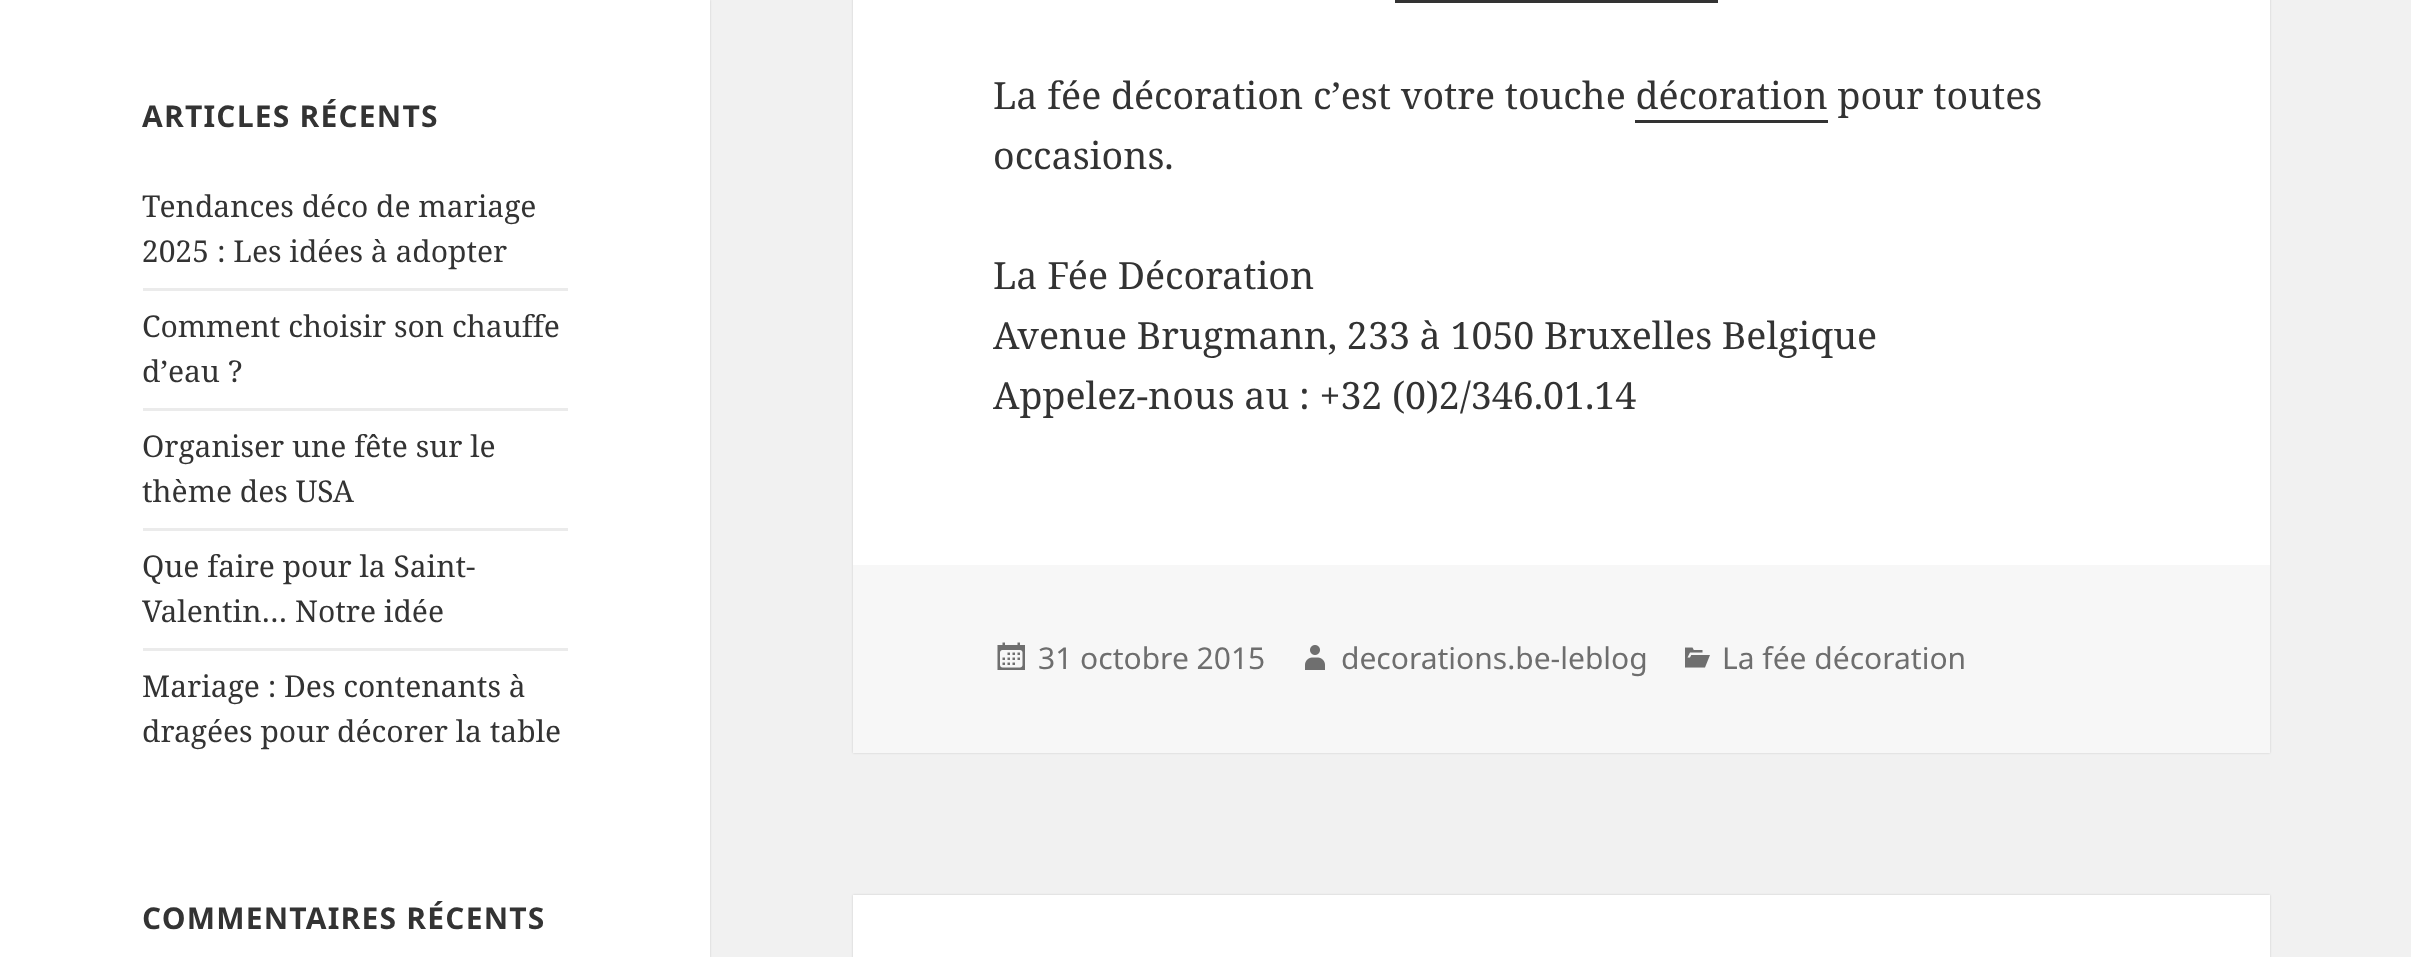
(async () => {
    const canvas = document.querySelector("canvas");
    canvas.width = 2411;
    canvas.height = 957;
    const context = canvas.getContext("2d");
    context.miterLimit = 4;
    context.fontKerning = "normal";
    function write(s, x, y, font, color) {
        context.font = font;
        context.fillStyle = color;
        context.fillText(s, x, y);
    }
    function block(x, y, w, h, color) {
        context.fillStyle = color;
        context.fillRect(x, y, w, h);
    }
    async function photo(src, x, y, w, h) {
        const img = new Image();
        img.src = src;
        await img.decode();
        context.drawImage(img, x, y, w, h);
    }

    block(0, 0, 2411, 957, "rgb(241, 241, 241)");
    context.fillStyle = "rgba(0, 0, 0, 0.15)";
    context.filter = "blur(1px)";
    context.beginPath();
    context.rect(0, 0, 710, 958);
    context.fill();
    context.filter = "none";
    block(0, 0, 710, 957, "rgb(255, 255, 255)");
    context.letterSpacing = "1.2px";
    write("ARTICLES RÉCENTS", 142, 127, "bold 30px Noto Sans", "rgb(51, 51, 51)");
    context.letterSpacing = "0px";
    write("Tendances déco de mariage", 142, 217, "30px Noto Serif", "rgb(51, 51, 51)");
    write("2025 : Les idées à adopter", 142, 262, "30px Noto Serif", "rgb(51, 51, 51)");
    block(143, 288, 425, 3, "rgb(235, 235, 235)");
    write("Comment choisir son chauffe", 142, 337, "30px Noto Serif", "rgb(51, 51, 51)");
    write("d’eau ?", 142, 382, "30px Noto Serif", "rgb(51, 51, 51)");
    block(143, 408, 425, 3, "rgb(235, 235, 235)");
    write("Organiser une fête sur le", 142, 457, "30px Noto Serif", "rgb(51, 51, 51)");
    write("thème des USA", 142, 502, "30px Noto Serif", "rgb(51, 51, 51)");
    block(143, 528, 425, 3, "rgb(235, 235, 235)");
    write("Que faire pour la Saint-", 142, 577, "30px Noto Serif", "rgb(51, 51, 51)");
    write("Valentin… Notre idée", 142, 622, "30px Noto Serif", "rgb(51, 51, 51)");
    block(143, 648, 425, 3, "rgb(235, 235, 235)");
    write("Mariage : Des contenants à", 142, 697, "30px Noto Serif", "rgb(51, 51, 51)");
    write("dragées pour décorer la table", 142, 742, "30px Noto Serif", "rgb(51, 51, 51)");
    context.letterSpacing = "1.2px";
    write("COMMENTAIRES RÉCENTS", 142, 929, "bold 30px Noto Sans", "rgb(51, 51, 51)");
    context.fillStyle = "rgba(0, 0, 0, 0.15)";
    context.filter = "blur(1px)";
    context.beginPath();
    context.rect(853, -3, 1417, 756);
    context.fill();
    context.filter = "none";
    block(853, 0, 1417, 565, "rgb(255, 255, 255)");
    block(1395, 0, 323, 3, "rgb(51, 51, 51)");
    context.letterSpacing = "0px";
    write("La fée décoration c’est votre touche décoration pour toutes", 993, 109, "37.5px Noto Serif", "rgb(51, 51, 51)");
    write("occasions.", 993, 169, "37.5px Noto Serif", "rgb(51, 51, 51)");
    block(1635, 120, 193, 3, "rgb(51, 51, 51)");
    write("La Fée Décoration", 993, 289, "37.5px Noto Serif", "rgb(51, 51, 51)");
    write("Avenue Brugmann, 233 à 1050 Bruxelles Belgique", 993, 349, "37.5px Noto Serif", "rgb(51, 51, 51)");
    write("Appelez-nous au : +32 (0)2/346.01.14", 993, 409, "37.5px Noto Serif", "rgb(51, 51, 51)");
    block(853, 565, 1417, 188, "rgb(247, 247, 247)");
    await photo("media/1.png", 997, 642, 28, 28);
    write("31 octobre 2015", 1038, 669, "30px Noto Sans", "rgb(110, 110, 110)");
    await photo("media/2.png", 1305, 645, 20, 25);
    write("decorations.be-leblog", 1341, 669, "30px Noto Sans", "rgb(110, 110, 110)");
    await photo("media/3.png", 1685, 647, 25, 21);
    write("La fée décoration", 1722, 669, "30px Noto Sans", "rgb(110, 110, 110)");
    context.fillStyle = "rgba(0, 0, 0, 0.15)";
    context.filter = "blur(1px)";
    context.beginPath();
    context.rect(853, 895, 1417, 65);
    context.fill();
    context.filter = "none";
    block(853, 895, 1417, 62, "rgb(255, 255, 255)");
})();
